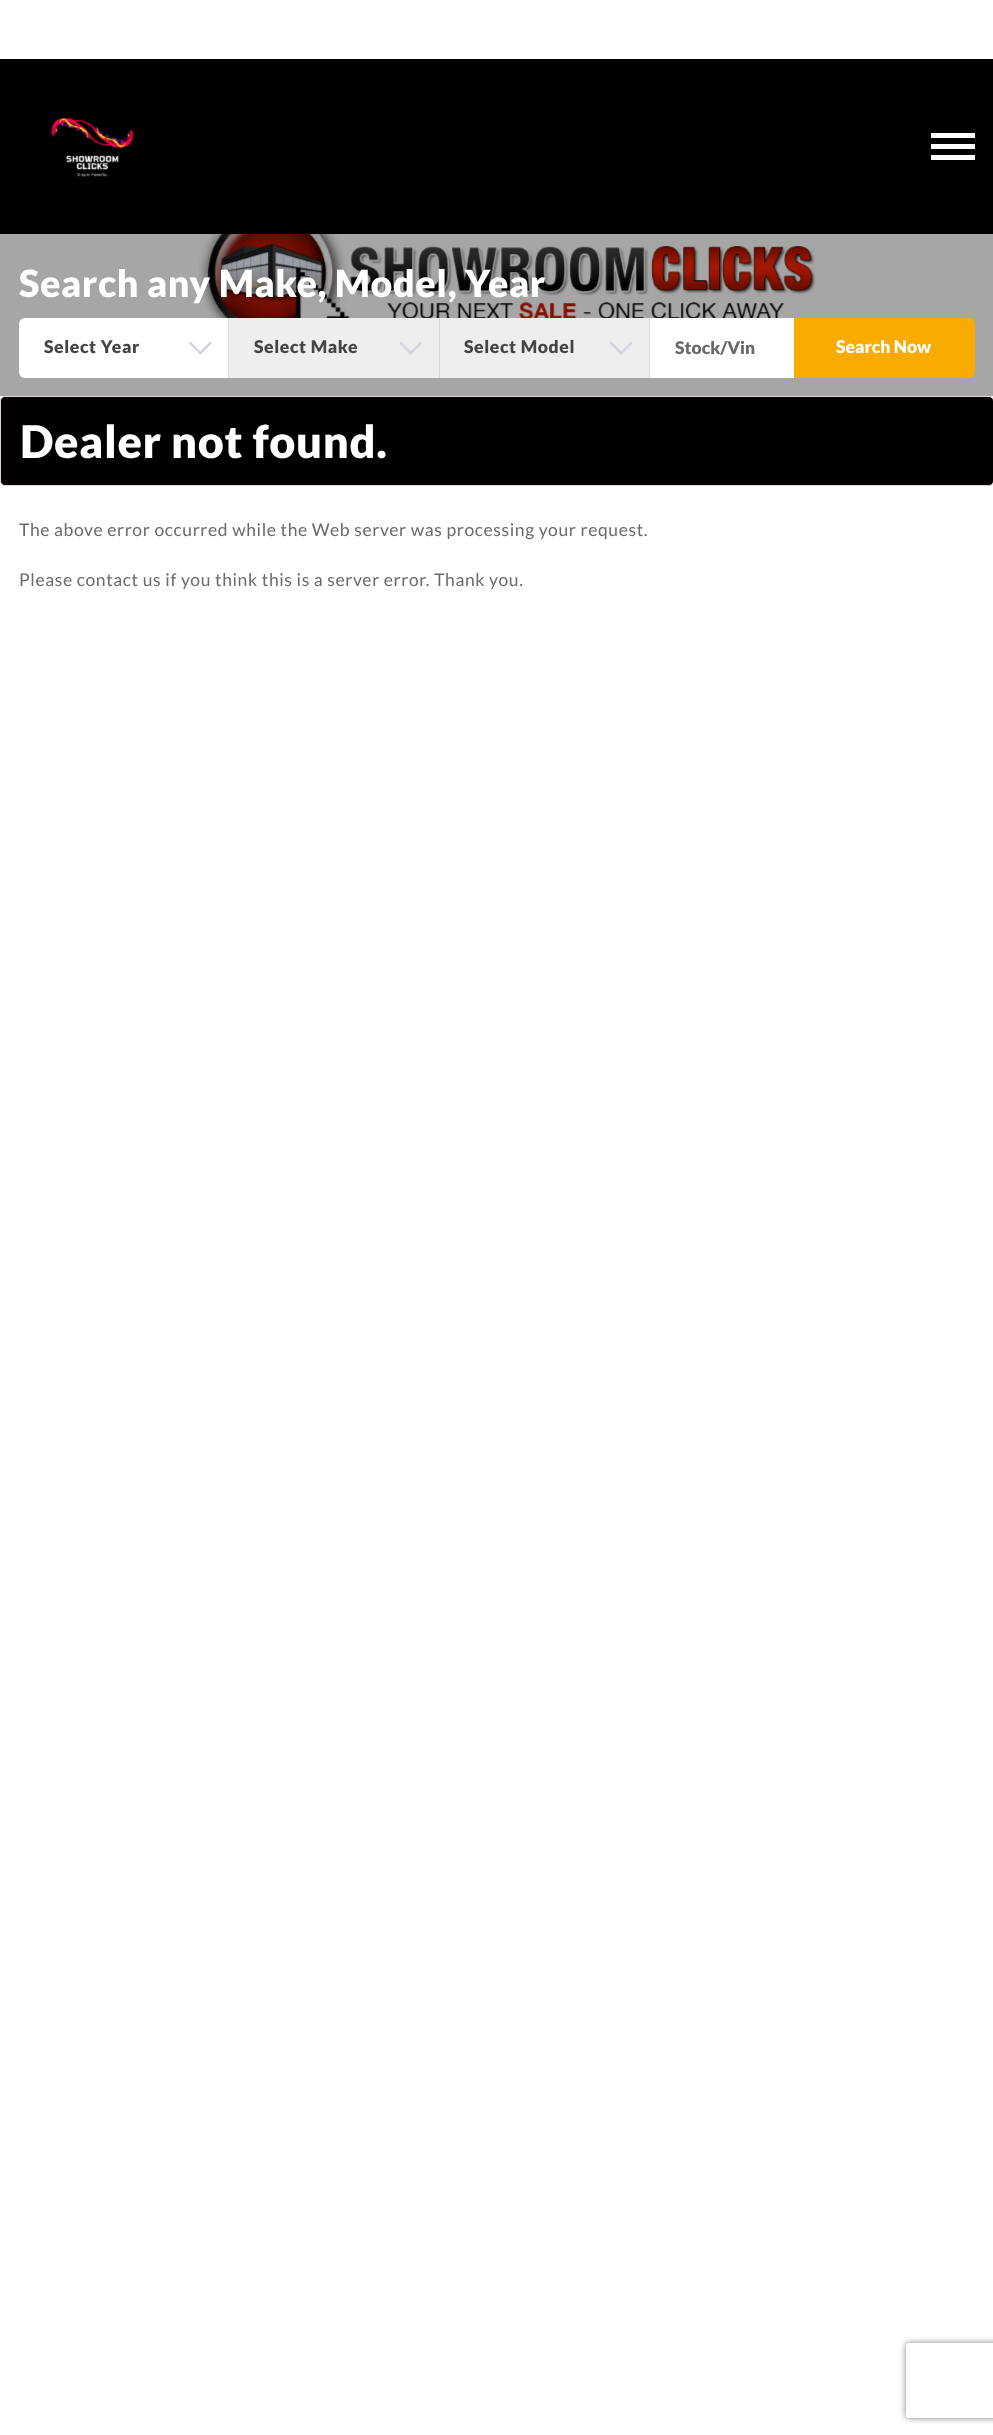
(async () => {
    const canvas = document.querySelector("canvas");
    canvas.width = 993;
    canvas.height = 2435;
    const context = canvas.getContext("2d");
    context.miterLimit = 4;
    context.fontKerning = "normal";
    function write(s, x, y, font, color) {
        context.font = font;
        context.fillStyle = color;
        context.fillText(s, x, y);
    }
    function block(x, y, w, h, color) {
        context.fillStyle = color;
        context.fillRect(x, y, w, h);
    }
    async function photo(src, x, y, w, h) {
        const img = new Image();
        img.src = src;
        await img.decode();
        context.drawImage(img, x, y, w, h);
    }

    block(0, 0, 993, 2435, "rgb(255, 255, 255)");
    block(0, 234, 993, 162, "rgb(166, 166, 166)");
    block(0, 59, 993, 175, "rgb(0, 0, 0)");
    await photo("media/1.png", 50, 118, 84, 60);
    block(931, 133, 44, 5, "rgb(255, 255, 255)");
    block(931, 144, 44, 5, "rgb(255, 255, 255)");
    block(931, 155, 44, 5, "rgb(255, 255, 255)");
    await photo("media/2.png", 198, 234, 618, 84);
    context.letterSpacing = "0.62px";
    write("Search any Make, Model, Year", 19, 297, "900 37.5px Lato", "rgb(255, 255, 255)");
    block(228, 318, 1, 60, "rgb(215, 218, 220)");
    context.fillStyle = "rgb(255, 255, 255)";
    context.beginPath();
    context.roundRect(19, 318, 209, 60, [6, 0, 0, 6]);
    context.fill();
    write("Select Year", 44, 353, "900 17.5px Lato", "rgb(68, 68, 68)");
    context.fillStyle = "rgb(210, 214, 222)";
    context.beginPath();
    context.moveTo(210, 341.5);
    context.lineTo(212, 343.5);
    context.lineTo(200.5, 355);
    context.lineTo(198.5, 353);
    context.closePath();
    context.fill();
    context.beginPath();
    context.moveTo(190.5, 341.5);
    context.lineTo(202, 353);
    context.lineTo(200.5, 355);
    context.lineTo(189, 343.5);
    context.closePath();
    context.fill();
    block(439, 318, 1, 60, "rgb(215, 218, 220)");
    block(229, 318, 210, 60, "rgb(238, 238, 238)");
    write("Select Make", 254, 353, "900 17.5px Lato", "rgb(68, 68, 68)");
    context.fillStyle = "rgb(210, 214, 222)";
    context.beginPath();
    context.moveTo(420.5, 341.5);
    context.lineTo(422, 343.5);
    context.lineTo(410.5, 355);
    context.lineTo(409, 353);
    context.closePath();
    context.fill();
    context.beginPath();
    context.moveTo(401, 341.5);
    context.lineTo(412.5, 353);
    context.lineTo(410.5, 355);
    context.lineTo(399.5, 343.5);
    context.closePath();
    context.fill();
    block(649, 318, 1, 60, "rgb(215, 218, 220)");
    block(440, 318, 209, 60, "rgb(238, 238, 238)");
    write("Select Model", 464, 353, "900 17.5px Lato", "rgb(68, 68, 68)");
    context.fillStyle = "rgb(210, 214, 222)";
    context.beginPath();
    context.moveTo(631, 341.5);
    context.lineTo(632.5, 343.5);
    context.lineTo(621, 355);
    context.lineTo(619.5, 353);
    context.closePath();
    context.fill();
    context.beginPath();
    context.moveTo(611.5, 341.5);
    context.lineTo(623, 353);
    context.lineTo(621, 355);
    context.lineTo(609.5, 343.5);
    context.closePath();
    context.fill();
    block(650, 318, 144, 60, "rgb(255, 255, 255)");
    context.letterSpacing = "0px";
    write("Stock/Vin", 675, 354, "900 17.5px Lato", "rgb(106, 106, 108)");
    context.fillStyle = "rgb(249, 171, 2)";
    context.beginPath();
    context.roundRect(794, 318, 181, 60, [0, 6, 6, 0]);
    context.fill();
    write("Search Now", 836, 353, "900 17.5px Lato", "rgb(255, 255, 255)");
    context.fillStyle = "rgb(0, 0, 0)";
    context.beginPath();
    context.roundRect(0.5, 396.5, 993, 89, 4.5);
    context.fill();
    context.strokeStyle = "rgb(235, 204, 209)";
    context.stroke();
    context.letterSpacing = "0.62px";
    write("Dealer not found.", 20, 458, "900 45px Lato", "rgb(255, 255, 255)");
    write("The above error occurred while the Web server was processing your request.", 19, 536, "17.5px Lato", "rgb(106, 106, 108)");
    write("Please contact us if you think this is a server error. Thank you.", 19, 586, "17.5px Lato", "rgb(106, 106, 108)");
    context.save();
    context.beginPath();
    context.moveTo(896, 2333);
    context.lineTo(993, 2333);
    context.lineTo(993, 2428);
    context.lineTo(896, 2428);
    context.closePath();
    context.moveTo(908.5, 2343);
    context.lineTo(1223.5, 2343);
    context.bezierCurveTo(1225, 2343, 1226, 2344, 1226, 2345.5);
    context.lineTo(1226, 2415.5);
    context.bezierCurveTo(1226, 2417, 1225, 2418, 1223.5, 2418);
    context.lineTo(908.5, 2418);
    context.bezierCurveTo(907, 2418, 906, 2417, 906, 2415.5);
    context.lineTo(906, 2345.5);
    context.bezierCurveTo(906, 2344, 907, 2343, 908.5, 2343);
    context.closePath();
    context.clip("evenodd");
    context.fillStyle = "rgb(128, 128, 128)";
    context.filter = "blur(3px)";
    context.beginPath();
    context.roundRect(906, 2343, 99, 75, 2.5);
    context.fill();
    context.filter = "none";
    context.restore();
})();
